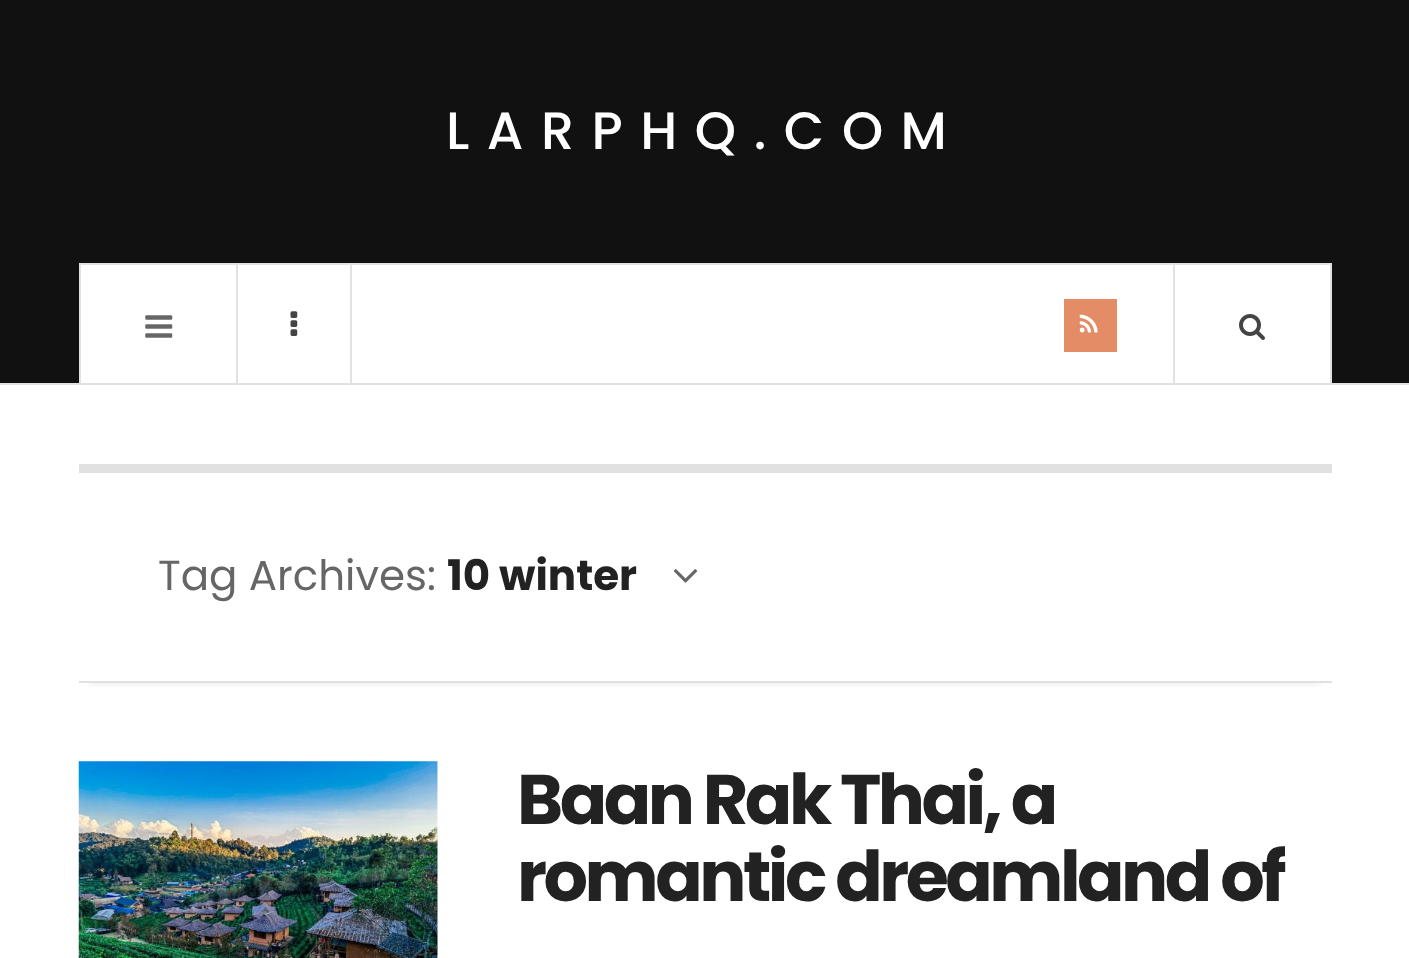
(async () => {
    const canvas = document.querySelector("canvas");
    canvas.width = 1409;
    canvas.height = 958;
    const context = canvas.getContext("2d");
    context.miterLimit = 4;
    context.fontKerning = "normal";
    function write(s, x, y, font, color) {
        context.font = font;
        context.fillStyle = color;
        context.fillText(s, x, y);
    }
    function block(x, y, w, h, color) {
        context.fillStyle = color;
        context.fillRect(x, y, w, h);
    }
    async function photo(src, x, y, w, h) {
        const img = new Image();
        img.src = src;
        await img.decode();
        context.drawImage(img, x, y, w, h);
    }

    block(0, 0, 1409, 958, "rgb(255, 255, 255)");
    block(0, 0, 1409, 383, "rgb(17, 17, 17)");
    block(0, 383, 1409, 2, "rgb(225, 225, 225)");
    context.letterSpacing = "17.5px";
    write("LARPHQ.COM", 446, 149, "500 52.5px Poppins", "rgb(255, 255, 255)");
    context.beginPath();
    context.rect(80, 264, 1251, 120);
    context.fill();
    context.strokeStyle = "rgb(225, 225, 225)";
    context.lineWidth = 2;
    context.stroke();
    block(236, 264, 2, 119, "rgb(225, 225, 225)");
    await photo("media/1.png", 145, 315, 28, 23);
    block(350, 264, 2, 119, "rgb(225, 225, 225)");
    await photo("media/2.png", 290, 311, 8, 25);
    block(1064, 299, 53, 53, "rgb(227, 140, 101)");
    await photo("media/3.png", 1079, 314, 19, 19);
    block(1173, 264, 2, 119, "rgb(225, 225, 225)");
    await photo("media/4.png", 1239, 314, 26, 26);
    block(79, 464, 1253, 9, "rgb(225, 225, 225)");
    context.save();
    context.beginPath();
    context.rect(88, 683, 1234, 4);
    context.clip();
    context.fillStyle = "rgba(0, 0, 0, 0.1)";
    context.filter = "blur(5px)";
    context.beginPath();
    context.rect(89, 494, 1232, 189);
    context.fill();
    context.filter = "none";
    context.restore();
    block(79, 681, 1253, 2, "rgb(225, 225, 225)");
    context.letterSpacing = "0px";
    write("Tag Archives:", 158, 590, "42px Poppins", "rgb(102, 102, 102)");
    write("10 winter", 447, 590, "bold 42px Poppins", "rgb(34, 34, 34)");
    await photo("media/5.png", 673, 569, 25, 14);
    await photo("media/6.png", 78, 761, 360, 197);
    context.letterSpacing = "-3.5px";
    write("Baan Rak Thai, a", 517, 824, "bold 70px Poppins", "rgb(34, 34, 34)");
    write("romantic dreamland of", 517, 901, "bold 70px Poppins", "rgb(34, 34, 34)");
})();
